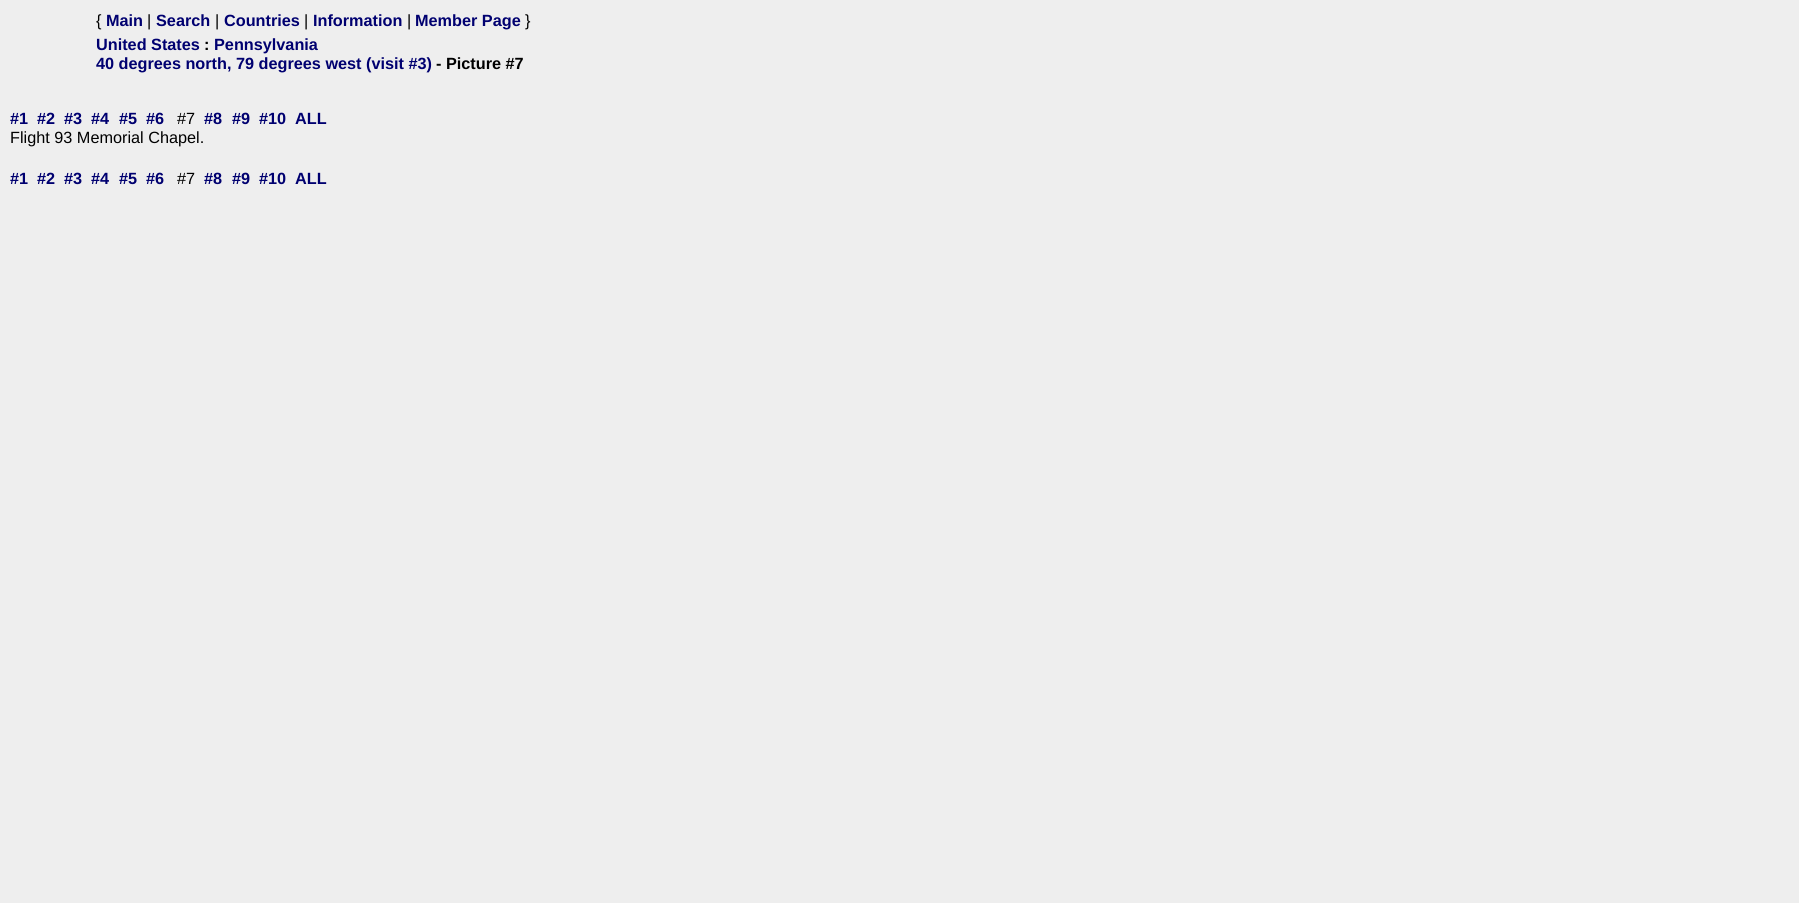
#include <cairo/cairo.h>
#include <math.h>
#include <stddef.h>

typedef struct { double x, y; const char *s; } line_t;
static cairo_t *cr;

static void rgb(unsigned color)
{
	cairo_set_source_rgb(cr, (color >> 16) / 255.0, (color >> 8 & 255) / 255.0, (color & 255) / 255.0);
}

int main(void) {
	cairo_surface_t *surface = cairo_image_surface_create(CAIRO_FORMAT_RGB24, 1799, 903);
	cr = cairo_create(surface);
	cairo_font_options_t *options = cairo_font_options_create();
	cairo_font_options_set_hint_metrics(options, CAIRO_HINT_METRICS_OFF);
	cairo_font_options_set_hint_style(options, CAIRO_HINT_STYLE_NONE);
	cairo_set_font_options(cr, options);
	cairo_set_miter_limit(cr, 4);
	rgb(0xeeeeee);
	cairo_paint(cr);
	cairo_select_font_face(cr, "Liberation Sans", CAIRO_FONT_SLANT_NORMAL, CAIRO_FONT_WEIGHT_NORMAL);
	cairo_set_font_size(cr, 16.25);
	rgb(0x000000);
	cairo_move_to(cr, 96, 26);
	cairo_show_text(cr, "{");
	cairo_select_font_face(cr, "Liberation Sans", CAIRO_FONT_SLANT_NORMAL, CAIRO_FONT_WEIGHT_BOLD);
	rgb(0x000070);
	cairo_move_to(cr, 106, 26);
	cairo_show_text(cr, "Main");
	cairo_select_font_face(cr, "Liberation Sans", CAIRO_FONT_SLANT_NORMAL, CAIRO_FONT_WEIGHT_NORMAL);
	rgb(0x000000);
	cairo_move_to(cr, 147, 26);
	cairo_show_text(cr, "|");
	cairo_select_font_face(cr, "Liberation Sans", CAIRO_FONT_SLANT_NORMAL, CAIRO_FONT_WEIGHT_BOLD);
	rgb(0x000070);
	cairo_move_to(cr, 156, 26);
	cairo_show_text(cr, "Search");
	cairo_select_font_face(cr, "Liberation Sans", CAIRO_FONT_SLANT_NORMAL, CAIRO_FONT_WEIGHT_NORMAL);
	rgb(0x000000);
	cairo_move_to(cr, 215, 26);
	cairo_show_text(cr, "|");
	cairo_select_font_face(cr, "Liberation Sans", CAIRO_FONT_SLANT_NORMAL, CAIRO_FONT_WEIGHT_BOLD);
	rgb(0x000070);
	cairo_move_to(cr, 224, 26);
	cairo_show_text(cr, "Countries");
	cairo_select_font_face(cr, "Liberation Sans", CAIRO_FONT_SLANT_NORMAL, CAIRO_FONT_WEIGHT_NORMAL);
	rgb(0x000000);
	cairo_move_to(cr, 304, 26);
	cairo_show_text(cr, "|");
	cairo_select_font_face(cr, "Liberation Sans", CAIRO_FONT_SLANT_NORMAL, CAIRO_FONT_WEIGHT_BOLD);
	rgb(0x000070);
	cairo_move_to(cr, 313, 26);
	cairo_show_text(cr, "Information");
	cairo_select_font_face(cr, "Liberation Sans", CAIRO_FONT_SLANT_NORMAL, CAIRO_FONT_WEIGHT_NORMAL);
	rgb(0x000000);
	cairo_move_to(cr, 407, 26);
	cairo_show_text(cr, "|");
	cairo_select_font_face(cr, "Liberation Sans", CAIRO_FONT_SLANT_NORMAL, CAIRO_FONT_WEIGHT_BOLD);
	rgb(0x000070);
	cairo_move_to(cr, 415, 26);
	cairo_show_text(cr, "Member Page");
	cairo_select_font_face(cr, "Liberation Sans", CAIRO_FONT_SLANT_NORMAL, CAIRO_FONT_WEIGHT_NORMAL);
	rgb(0x000000);
	cairo_move_to(cr, 525, 26);
	cairo_show_text(cr, "}");
	cairo_select_font_face(cr, "Liberation Sans", CAIRO_FONT_SLANT_NORMAL, CAIRO_FONT_WEIGHT_BOLD);
	rgb(0x000070);
	cairo_move_to(cr, 96, 50);
	cairo_show_text(cr, "United States");
	rgb(0x000000);
	cairo_move_to(cr, 204, 50);
	cairo_show_text(cr, ":");
	rgb(0x000070);
	cairo_move_to(cr, 214, 50);
	cairo_show_text(cr, "Pennsylvania");
	cairo_move_to(cr, 96, 69);
	cairo_show_text(cr, "40 degrees north, 79 degrees west (visit #3)");
	rgb(0x000000);
	cairo_move_to(cr, 436, 69);
	cairo_show_text(cr, "- Picture #7");
	rgb(0x000070);
	{
		static const line_t items[] = {
			{10, 124, "#1"},
			{37, 124, "#2"},
			{64, 124, "#3"},
			{91, 124, "#4"},
			{119, 124, "#5"},
			{146, 124, "#6"},
		};
		for (size_t i = 0; i < sizeof items / sizeof *items; i++) {
			cairo_move_to(cr, items[i].x, items[i].y);
			cairo_show_text(cr, items[i].s);
		}
	}
	cairo_select_font_face(cr, "Liberation Sans", CAIRO_FONT_SLANT_NORMAL, CAIRO_FONT_WEIGHT_NORMAL);
	rgb(0x000000);
	cairo_move_to(cr, 177, 124);
	cairo_show_text(cr, "#7");
	cairo_select_font_face(cr, "Liberation Sans", CAIRO_FONT_SLANT_NORMAL, CAIRO_FONT_WEIGHT_BOLD);
	rgb(0x000070);
	{
		static const line_t items[] = {
			{204, 124, "#8"},
			{232, 124, "#9"},
			{259, 124, "#10"},
			{295, 124, "ALL"},
		};
		for (size_t i = 0; i < sizeof items / sizeof *items; i++) {
			cairo_move_to(cr, items[i].x, items[i].y);
			cairo_show_text(cr, items[i].s);
		}
	}
	cairo_select_font_face(cr, "Liberation Sans", CAIRO_FONT_SLANT_NORMAL, CAIRO_FONT_WEIGHT_NORMAL);
	rgb(0x000000);
	cairo_move_to(cr, 10, 143);
	cairo_show_text(cr, "Flight 93 Memorial Chapel.");
	cairo_select_font_face(cr, "Liberation Sans", CAIRO_FONT_SLANT_NORMAL, CAIRO_FONT_WEIGHT_BOLD);
	rgb(0x000070);
	{
		static const line_t items[] = {
			{10, 184, "#1"},
			{37, 184, "#2"},
			{64, 184, "#3"},
			{91, 184, "#4"},
			{119, 184, "#5"},
			{146, 184, "#6"},
		};
		for (size_t i = 0; i < sizeof items / sizeof *items; i++) {
			cairo_move_to(cr, items[i].x, items[i].y);
			cairo_show_text(cr, items[i].s);
		}
	}
	cairo_select_font_face(cr, "Liberation Sans", CAIRO_FONT_SLANT_NORMAL, CAIRO_FONT_WEIGHT_NORMAL);
	rgb(0x000000);
	cairo_move_to(cr, 177, 184);
	cairo_show_text(cr, "#7");
	cairo_select_font_face(cr, "Liberation Sans", CAIRO_FONT_SLANT_NORMAL, CAIRO_FONT_WEIGHT_BOLD);
	rgb(0x000070);
	{
		static const line_t items[] = {
			{204, 184, "#8"},
			{232, 184, "#9"},
			{259, 184, "#10"},
			{295, 184, "ALL"},
		};
		for (size_t i = 0; i < sizeof items / sizeof *items; i++) {
			cairo_move_to(cr, items[i].x, items[i].y);
			cairo_show_text(cr, items[i].s);
		}
	}
	cairo_surface_write_to_png(surface, "page.png");
	cairo_font_options_destroy(options);
	cairo_destroy(cr);
	cairo_surface_destroy(surface);
	return 0;
}
